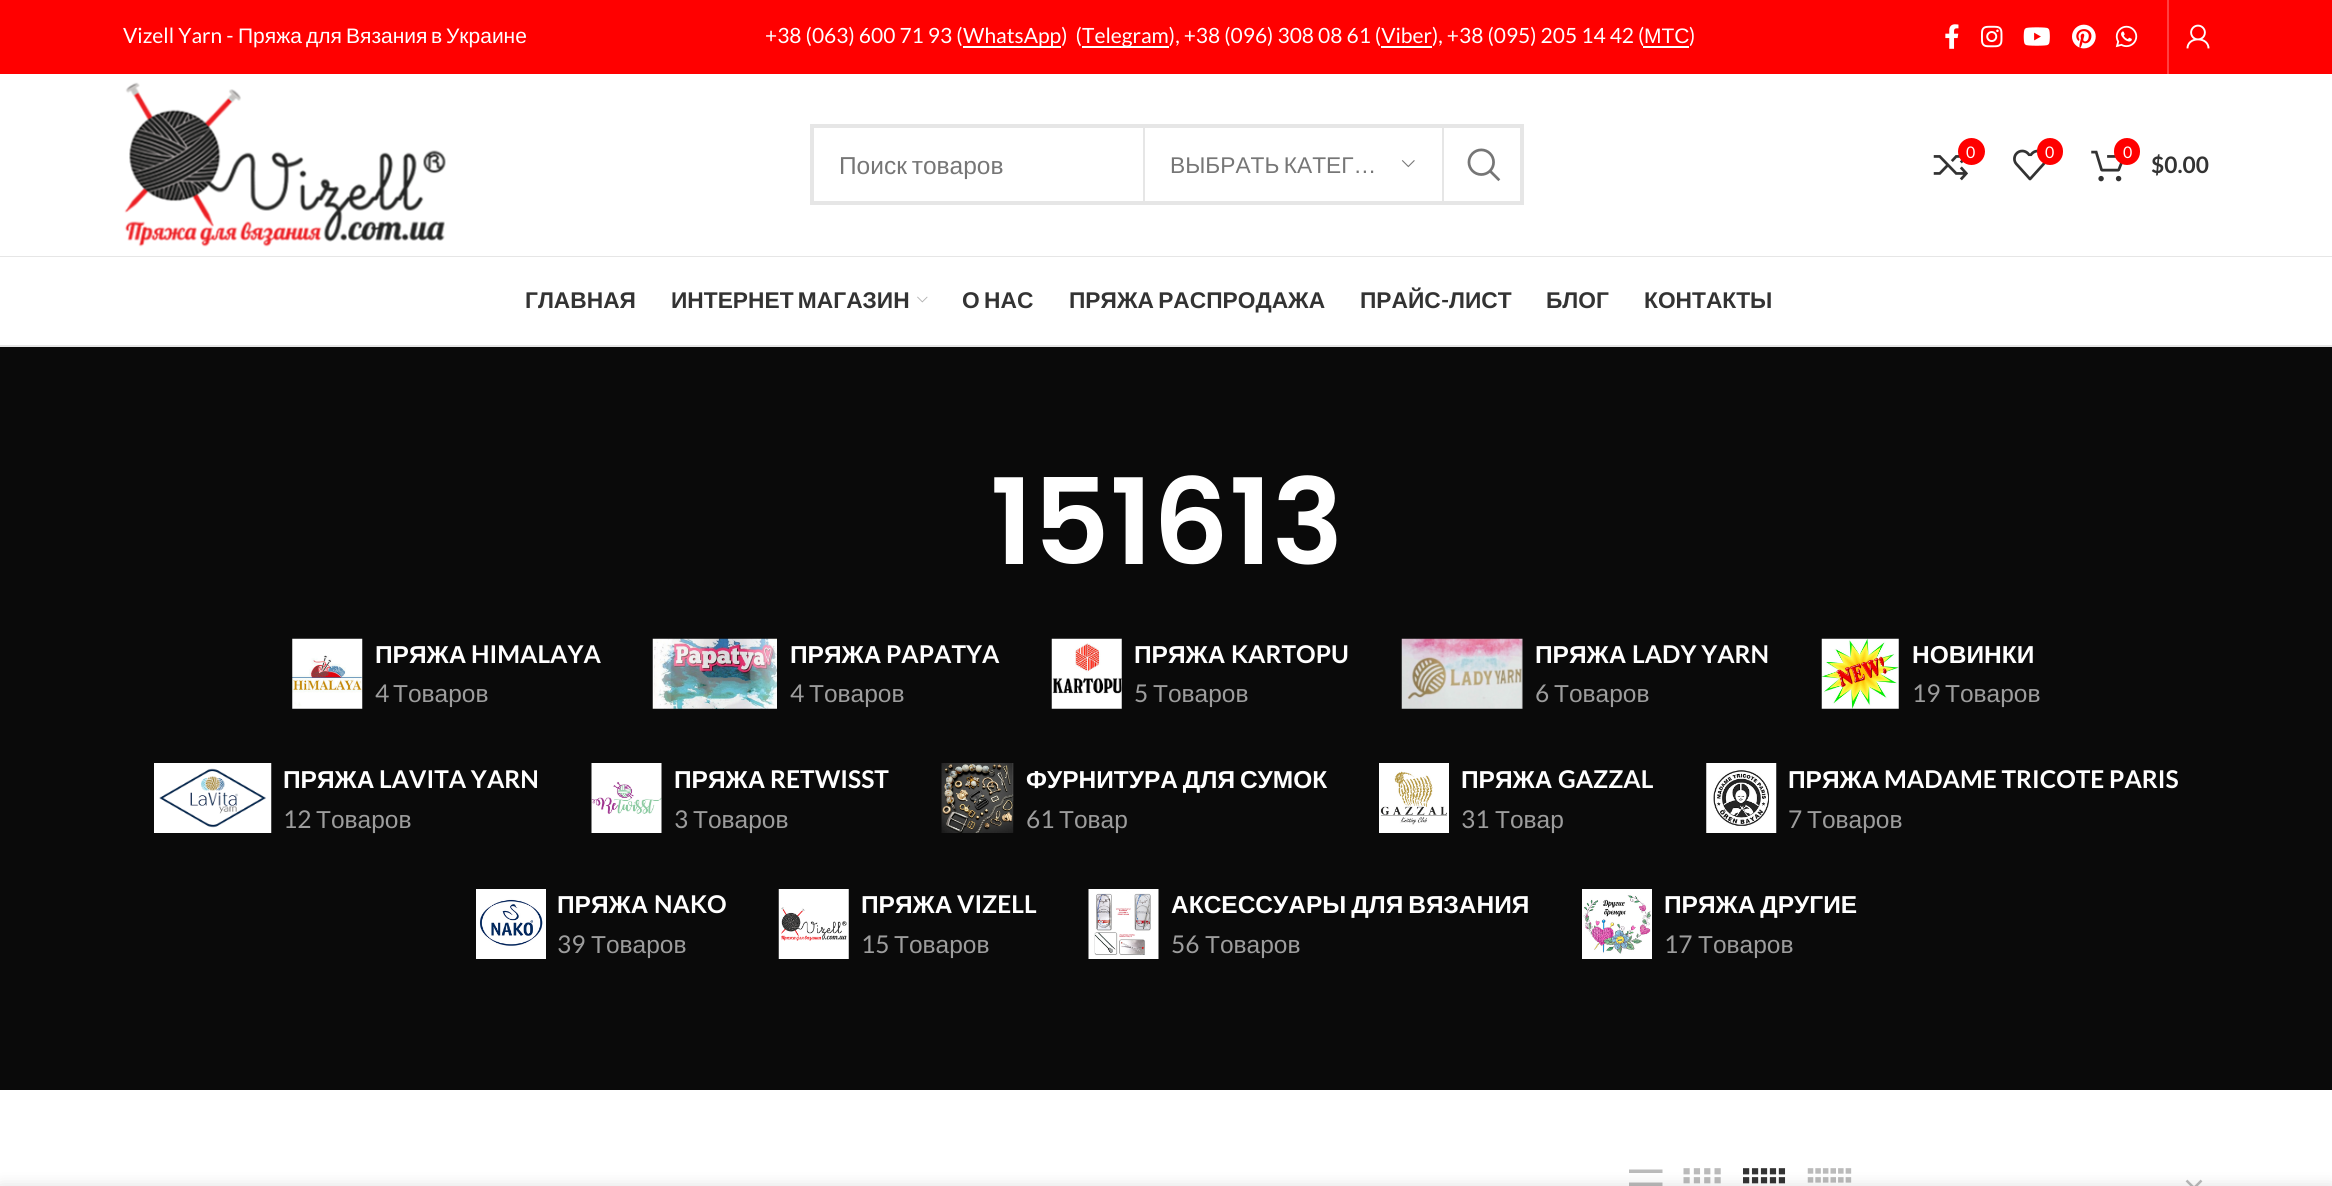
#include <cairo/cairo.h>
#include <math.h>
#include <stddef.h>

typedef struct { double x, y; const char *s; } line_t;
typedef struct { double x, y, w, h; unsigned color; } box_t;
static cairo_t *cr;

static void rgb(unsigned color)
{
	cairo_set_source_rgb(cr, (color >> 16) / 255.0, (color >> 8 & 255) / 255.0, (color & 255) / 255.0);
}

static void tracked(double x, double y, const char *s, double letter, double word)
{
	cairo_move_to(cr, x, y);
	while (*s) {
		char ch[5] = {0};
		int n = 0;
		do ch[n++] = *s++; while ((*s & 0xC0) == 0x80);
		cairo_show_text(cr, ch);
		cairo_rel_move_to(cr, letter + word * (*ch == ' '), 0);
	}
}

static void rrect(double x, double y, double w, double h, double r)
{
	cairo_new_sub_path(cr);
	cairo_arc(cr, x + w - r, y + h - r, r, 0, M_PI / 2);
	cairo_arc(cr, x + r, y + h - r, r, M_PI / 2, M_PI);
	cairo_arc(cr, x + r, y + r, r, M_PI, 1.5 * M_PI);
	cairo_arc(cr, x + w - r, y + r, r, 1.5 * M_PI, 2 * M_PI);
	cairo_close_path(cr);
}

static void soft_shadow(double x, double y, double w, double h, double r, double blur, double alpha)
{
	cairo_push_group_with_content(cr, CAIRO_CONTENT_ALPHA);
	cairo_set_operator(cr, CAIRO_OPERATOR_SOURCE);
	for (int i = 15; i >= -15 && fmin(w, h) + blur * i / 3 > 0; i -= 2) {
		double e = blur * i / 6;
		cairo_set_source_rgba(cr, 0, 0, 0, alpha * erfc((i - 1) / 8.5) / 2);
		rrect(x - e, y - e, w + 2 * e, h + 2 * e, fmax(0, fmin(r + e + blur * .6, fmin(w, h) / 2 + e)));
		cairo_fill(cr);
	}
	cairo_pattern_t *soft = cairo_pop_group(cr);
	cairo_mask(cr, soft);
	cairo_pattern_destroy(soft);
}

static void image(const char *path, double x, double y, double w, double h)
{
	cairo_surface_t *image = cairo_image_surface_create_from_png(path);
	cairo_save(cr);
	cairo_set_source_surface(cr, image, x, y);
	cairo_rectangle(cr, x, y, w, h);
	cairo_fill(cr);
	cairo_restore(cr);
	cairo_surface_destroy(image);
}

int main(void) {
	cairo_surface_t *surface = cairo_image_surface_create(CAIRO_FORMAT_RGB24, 2332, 1186);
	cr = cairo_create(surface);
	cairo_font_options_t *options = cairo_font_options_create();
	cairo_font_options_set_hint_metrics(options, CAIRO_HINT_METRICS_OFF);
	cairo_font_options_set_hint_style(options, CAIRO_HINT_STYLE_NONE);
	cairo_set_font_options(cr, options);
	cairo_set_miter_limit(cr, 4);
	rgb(0xffffff);
	cairo_paint(cr);
	{
		static const box_t items[] = {
			{0, 0, 2332, 74, 0xff0000},
			{963, 46, 98, 2, 0xffffff},
			{1082, 46, 87, 2, 0xffffff},
			{1381, 46, 51, 2, 0xffffff},
			{1643, 46, 46, 2, 0xffffff},
		};
		for (size_t i = 0; i < sizeof items / sizeof *items; i++) {
			rgb(items[i].color);
			cairo_rectangle(cr, items[i].x, items[i].y, items[i].w, items[i].h);
			cairo_fill(cr);
		}
	}
	image("img/1.png", 1945, 24, 14, 25);
	image("img/2.png", 1981, 25, 22, 23);
	image("img/3.png", 2023, 27, 27, 19);
	image("img/4.png", 2072, 24, 24, 25);
	image("img/5.png", 2115, 25, 23, 23);
	rgb(0xff4040);
	cairo_rectangle(cr, 2167, 0, 2, 74);
	cairo_fill(cr);
	image("img/6.png", 2186, 24, 24, 25);
	rgb(0xe6e6e6);
	cairo_rectangle(cr, 0, 256, 2332, 1);
	cairo_fill(cr);
	image("img/7.png", 124, 82, 322, 165);
	cairo_rectangle(cr, 812, 126, 710, 77);
	cairo_set_line_width(cr, 4);
	cairo_stroke(cr);
	cairo_rectangle(cr, 1442, 128, 2, 73);
	cairo_fill(cr);
	cairo_rectangle(cr, 1143, 128, 2, 73);
	cairo_fill(cr);
	image("img/8.png", 1401, 160, 14, 8);
	image("img/9.png", 1467, 148, 34, 34);
	image("img/10.png", 1933, 155, 35, 26);
	rgb(0xff0000);
	cairo_arc(cr, 1971.5, 151.5, 13.5, 0, 2 * M_PI);
	cairo_fill(cr);
	image("img/11.png", 2013, 149, 33, 32);
	rrect(2037, 138, 26, 27, 13);
	cairo_fill(cr);
	image("img/12.png", 2091, 150, 32, 32);
	rrect(2114, 138, 26, 27, 13);
	cairo_fill(cr);
	rgb(0xe6e6e6);
	cairo_rectangle(cr, 0, 345, 2332, 2);
	cairo_fill(cr);
	image("img/13.png", 917, 296, 11, 7);
	rgb(0x0a0a0a);
	cairo_rectangle(cr, 0, 347, 2332, 743);
	cairo_fill(cr);
	image("img/14.png", 292, 638, 71, 71);
	image("img/15.png", 652, 638, 125, 71);
	image("img/16.png", 1051, 638, 71, 71);
	image("img/17.png", 1401, 638, 122, 71);
	image("img/18.png", 1821, 638, 78, 71);
	image("img/19.png", 154, 763, 118, 70);
	image("img/20.png", 591, 763, 71, 70);
	image("img/21.png", 941, 763, 73, 70);
	image("img/22.png", 1379, 763, 70, 70);
	image("img/23.png", 1706, 763, 71, 70);
	image("img/24.png", 476, 889, 70, 70);
	image("img/25.png", 778, 889, 71, 70);
	image("img/26.png", 1088, 889, 71, 70);
	image("img/27.png", 1582, 889, 70, 70);
	rgb(0xbbbbbb);
	cairo_new_path(cr);
	cairo_move_to(cr, 1629, 1169.5);
	cairo_line_to(cr, 1629, 1173);
	cairo_line_to(cr, 1662.5, 1173);
	cairo_line_to(cr, 1662.5, 1169.5);
	cairo_close_path(cr);
	cairo_move_to(cr, 1629, 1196.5);
	cairo_line_to(cr, 1629, 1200);
	cairo_line_to(cr, 1662.5, 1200);
	cairo_line_to(cr, 1662.5, 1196.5);
	cairo_close_path(cr);
	cairo_move_to(cr, 1662.5, 1182.5);
	cairo_line_to(cr, 1629, 1182.5);
	cairo_line_to(cr, 1629, 1186);
	cairo_line_to(cr, 1662.5, 1186);
	cairo_close_path(cr);
	cairo_fill(cr);
	image("img/28.png", 1683, 1168, 38, 16);
	image("img/29.png", 1743, 1168, 43, 16);
	image("img/30.png", 1807, 1168, 45, 15);
	cairo_new_path(cr);
	cairo_move_to(cr, 2186.5, 1180.5);
	cairo_line_to(cr, 2194, 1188);
	cairo_line_to(cr, 2201.5, 1180.5);
	cairo_set_line_width(cr, 2.5);
	cairo_stroke(cr);
	rgb(0x000000);
	soft_shadow(0, 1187, 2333, 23, 0, 8, 0.14);
	cairo_select_font_face(cr, "Lato", CAIRO_FONT_SLANT_NORMAL, CAIRO_FONT_WEIGHT_NORMAL);
	cairo_set_font_size(cr, 21);
	rgb(0xffffff);
	cairo_move_to(cr, 123, 43);
	cairo_show_text(cr, "Vizell Yarn -");
	cairo_select_font_face(cr, "Liberation Sans", CAIRO_FONT_SLANT_NORMAL, CAIRO_FONT_WEIGHT_NORMAL);
	{
		static const line_t items[] = {
			{238, 43, "Пряжа"},
			{306, 43, "для"},
			{346, 43, "Вязания"},
			{431, 43, "в"},
			{446, 43, "Украине"},
		};
		for (size_t i = 0; i < sizeof items / sizeof *items; i++) {
			cairo_move_to(cr, items[i].x, items[i].y);
			cairo_show_text(cr, items[i].s);
		}
	}
	cairo_select_font_face(cr, "Lato", CAIRO_FONT_SLANT_NORMAL, CAIRO_FONT_WEIGHT_NORMAL);
	{
		static const line_t items[] = {
			{765, 43, "+38 (063) 600 71 93 ("},
			{963, 43, "WhatsApp)  ("},
			{1082, 43, "Telegram), +38 (096) 308 08 61 (Viber), +38 (095) 205 14 42 ("},
		};
		for (size_t i = 0; i < sizeof items / sizeof *items; i++) {
			cairo_move_to(cr, items[i].x, items[i].y);
			cairo_show_text(cr, items[i].s);
		}
	}
	cairo_select_font_face(cr, "Liberation Sans", CAIRO_FONT_SLANT_NORMAL, CAIRO_FONT_WEIGHT_NORMAL);
	cairo_move_to(cr, 1644, 43);
	cairo_show_text(cr, "МТС");
	cairo_select_font_face(cr, "Lato", CAIRO_FONT_SLANT_NORMAL, CAIRO_FONT_WEIGHT_NORMAL);
	cairo_move_to(cr, 1689, 43);
	cairo_show_text(cr, ")");
	cairo_select_font_face(cr, "Liberation Sans", CAIRO_FONT_SLANT_NORMAL, CAIRO_FONT_WEIGHT_NORMAL);
	cairo_set_font_size(cr, 24.5);
	rgb(0x767676);
	tracked(839, 174, "Поиск товаров", 0, -2);
	cairo_set_font_size(cr, 22.75);
	tracked(1170, 173, "ВЫБРАТЬ КАТЕГ…", 0, -2);
	cairo_select_font_face(cr, "Lato", CAIRO_FONT_SLANT_NORMAL, CAIRO_FONT_WEIGHT_NORMAL);
	cairo_set_font_size(cr, 16);
	rgb(0xffffff);
	{
		static const line_t items[] = {
			{1966, 158, "0"},
			{2045, 158, "0"},
			{2123, 158, "0"},
		};
		for (size_t i = 0; i < sizeof items / sizeof *items; i++) {
			cairo_move_to(cr, items[i].x, items[i].y);
			cairo_show_text(cr, items[i].s);
		}
	}
	cairo_select_font_face(cr, "Lato", CAIRO_FONT_SLANT_NORMAL, CAIRO_FONT_WEIGHT_BOLD);
	cairo_set_font_size(cr, 22.75);
	rgb(0x333333);
	cairo_move_to(cr, 2151, 173);
	cairo_show_text(cr, "$0.00");
	cairo_select_font_face(cr, "Liberation Sans", CAIRO_FONT_SLANT_NORMAL, CAIRO_FONT_WEIGHT_BOLD);
	cairo_move_to(cr, 525, 308);
	cairo_show_text(cr, "ГЛАВНАЯ");
	{
		static const line_t items[] = {
			{671, 308, "ИНТЕРНЕТ МАГАЗИН"},
			{962, 308, "О НАС"},
			{1069, 308, "ПРЯЖА РАСПРОДАЖА"},
		};
		for (size_t i = 0; i < sizeof items / sizeof *items; i++) {
			tracked(items[i].x, items[i].y, items[i].s, 0, -2);
		}
	}
	cairo_move_to(cr, 1360, 308);
	cairo_show_text(cr, "ПРАЙС");
	cairo_select_font_face(cr, "Lato", CAIRO_FONT_SLANT_NORMAL, CAIRO_FONT_WEIGHT_BOLD);
	cairo_move_to(cr, 1441, 308);
	cairo_show_text(cr, "-");
	cairo_select_font_face(cr, "Liberation Sans", CAIRO_FONT_SLANT_NORMAL, CAIRO_FONT_WEIGHT_BOLD);
	{
		static const line_t items[] = {
			{1449, 308, "ЛИСТ"},
			{1546, 308, "БЛОГ"},
			{1644, 308, "КОНТАКТЫ"},
		};
		for (size_t i = 0; i < sizeof items / sizeof *items; i++) {
			cairo_move_to(cr, items[i].x, items[i].y);
			cairo_show_text(cr, items[i].s);
		}
	}
	cairo_select_font_face(cr, "Poppins SemiBold", CAIRO_FONT_SLANT_NORMAL, CAIRO_FONT_WEIGHT_NORMAL);
	cairo_set_font_size(cr, 119);
	rgb(0xffffff);
	cairo_move_to(cr, 990, 564);
	cairo_show_text(cr, "151613");
	cairo_select_font_face(cr, "Liberation Sans", CAIRO_FONT_SLANT_NORMAL, CAIRO_FONT_WEIGHT_BOLD);
	cairo_set_font_size(cr, 24.5);
	cairo_move_to(cr, 375, 663);
	cairo_show_text(cr, "ПРЯЖА");
	cairo_select_font_face(cr, "Lato", CAIRO_FONT_SLANT_NORMAL, CAIRO_FONT_WEIGHT_BOLD);
	cairo_move_to(cr, 471, 663);
	cairo_show_text(cr, "HIMALAYA");
	cairo_select_font_face(cr, "Lato", CAIRO_FONT_SLANT_NORMAL, CAIRO_FONT_WEIGHT_NORMAL);
	rgb(0x9d9d9d);
	cairo_move_to(cr, 375, 702);
	cairo_show_text(cr, "4");
	cairo_select_font_face(cr, "Liberation Sans", CAIRO_FONT_SLANT_NORMAL, CAIRO_FONT_WEIGHT_NORMAL);
	cairo_move_to(cr, 393, 702);
	cairo_show_text(cr, "Товаров");
	cairo_select_font_face(cr, "Liberation Sans", CAIRO_FONT_SLANT_NORMAL, CAIRO_FONT_WEIGHT_BOLD);
	rgb(0xffffff);
	cairo_move_to(cr, 790, 663);
	cairo_show_text(cr, "ПРЯЖА");
	cairo_select_font_face(cr, "Lato", CAIRO_FONT_SLANT_NORMAL, CAIRO_FONT_WEIGHT_BOLD);
	cairo_move_to(cr, 886, 663);
	cairo_show_text(cr, "PAPATYA");
	cairo_select_font_face(cr, "Lato", CAIRO_FONT_SLANT_NORMAL, CAIRO_FONT_WEIGHT_NORMAL);
	rgb(0x9d9d9d);
	cairo_move_to(cr, 790, 702);
	cairo_show_text(cr, "4");
	cairo_select_font_face(cr, "Liberation Sans", CAIRO_FONT_SLANT_NORMAL, CAIRO_FONT_WEIGHT_NORMAL);
	cairo_move_to(cr, 809, 702);
	cairo_show_text(cr, "Товаров");
	cairo_select_font_face(cr, "Liberation Sans", CAIRO_FONT_SLANT_NORMAL, CAIRO_FONT_WEIGHT_BOLD);
	rgb(0xffffff);
	cairo_move_to(cr, 1134, 663);
	cairo_show_text(cr, "ПРЯЖА");
	cairo_select_font_face(cr, "Lato", CAIRO_FONT_SLANT_NORMAL, CAIRO_FONT_WEIGHT_BOLD);
	cairo_move_to(cr, 1231, 663);
	cairo_show_text(cr, "KARTOPU");
	cairo_select_font_face(cr, "Lato", CAIRO_FONT_SLANT_NORMAL, CAIRO_FONT_WEIGHT_NORMAL);
	rgb(0x9d9d9d);
	cairo_move_to(cr, 1134, 702);
	cairo_show_text(cr, "5");
	cairo_select_font_face(cr, "Liberation Sans", CAIRO_FONT_SLANT_NORMAL, CAIRO_FONT_WEIGHT_NORMAL);
	cairo_move_to(cr, 1153, 702);
	cairo_show_text(cr, "Товаров");
	cairo_select_font_face(cr, "Liberation Sans", CAIRO_FONT_SLANT_NORMAL, CAIRO_FONT_WEIGHT_BOLD);
	rgb(0xffffff);
	cairo_move_to(cr, 1535, 663);
	cairo_show_text(cr, "ПРЯЖА");
	cairo_select_font_face(cr, "Lato", CAIRO_FONT_SLANT_NORMAL, CAIRO_FONT_WEIGHT_BOLD);
	cairo_move_to(cr, 1632, 663);
	cairo_show_text(cr, "LADY YARN");
	cairo_select_font_face(cr, "Lato", CAIRO_FONT_SLANT_NORMAL, CAIRO_FONT_WEIGHT_NORMAL);
	rgb(0x9d9d9d);
	cairo_move_to(cr, 1535, 702);
	cairo_show_text(cr, "6");
	cairo_select_font_face(cr, "Liberation Sans", CAIRO_FONT_SLANT_NORMAL, CAIRO_FONT_WEIGHT_NORMAL);
	cairo_move_to(cr, 1554, 702);
	cairo_show_text(cr, "Товаров");
	cairo_select_font_face(cr, "Liberation Sans", CAIRO_FONT_SLANT_NORMAL, CAIRO_FONT_WEIGHT_BOLD);
	rgb(0xffffff);
	cairo_move_to(cr, 1912, 663);
	cairo_show_text(cr, "НОВИНКИ");
	cairo_select_font_face(cr, "Lato", CAIRO_FONT_SLANT_NORMAL, CAIRO_FONT_WEIGHT_NORMAL);
	rgb(0x9d9d9d);
	cairo_move_to(cr, 1912, 702);
	cairo_show_text(cr, "19");
	cairo_select_font_face(cr, "Liberation Sans", CAIRO_FONT_SLANT_NORMAL, CAIRO_FONT_WEIGHT_NORMAL);
	cairo_move_to(cr, 1945, 702);
	cairo_show_text(cr, "Товаров");
	cairo_select_font_face(cr, "Liberation Sans", CAIRO_FONT_SLANT_NORMAL, CAIRO_FONT_WEIGHT_BOLD);
	rgb(0xffffff);
	cairo_move_to(cr, 283, 788);
	cairo_show_text(cr, "ПРЯЖА");
	cairo_select_font_face(cr, "Lato", CAIRO_FONT_SLANT_NORMAL, CAIRO_FONT_WEIGHT_BOLD);
	cairo_move_to(cr, 379, 788);
	cairo_show_text(cr, "LAVITA YARN");
	cairo_select_font_face(cr, "Lato", CAIRO_FONT_SLANT_NORMAL, CAIRO_FONT_WEIGHT_NORMAL);
	rgb(0x9d9d9d);
	cairo_move_to(cr, 283, 828);
	cairo_show_text(cr, "12");
	cairo_select_font_face(cr, "Liberation Sans", CAIRO_FONT_SLANT_NORMAL, CAIRO_FONT_WEIGHT_NORMAL);
	cairo_move_to(cr, 316, 828);
	cairo_show_text(cr, "Товаров");
	cairo_select_font_face(cr, "Liberation Sans", CAIRO_FONT_SLANT_NORMAL, CAIRO_FONT_WEIGHT_BOLD);
	rgb(0xffffff);
	cairo_move_to(cr, 674, 788);
	cairo_show_text(cr, "ПРЯЖА");
	cairo_select_font_face(cr, "Lato", CAIRO_FONT_SLANT_NORMAL, CAIRO_FONT_WEIGHT_BOLD);
	cairo_move_to(cr, 770, 788);
	cairo_show_text(cr, "RETWISST");
	cairo_select_font_face(cr, "Lato", CAIRO_FONT_SLANT_NORMAL, CAIRO_FONT_WEIGHT_NORMAL);
	rgb(0x9d9d9d);
	cairo_move_to(cr, 674, 828);
	cairo_show_text(cr, "3");
	cairo_select_font_face(cr, "Liberation Sans", CAIRO_FONT_SLANT_NORMAL, CAIRO_FONT_WEIGHT_NORMAL);
	cairo_move_to(cr, 693, 828);
	cairo_show_text(cr, "Товаров");
	cairo_select_font_face(cr, "Liberation Sans", CAIRO_FONT_SLANT_NORMAL, CAIRO_FONT_WEIGHT_BOLD);
	rgb(0xffffff);
	tracked(1026, 788, "ФУРНИТУРА ДЛЯ СУМОК", 0, -2);
	cairo_select_font_face(cr, "Lato", CAIRO_FONT_SLANT_NORMAL, CAIRO_FONT_WEIGHT_NORMAL);
	rgb(0x9d9d9d);
	cairo_move_to(cr, 1026, 828);
	cairo_show_text(cr, "61");
	cairo_select_font_face(cr, "Liberation Sans", CAIRO_FONT_SLANT_NORMAL, CAIRO_FONT_WEIGHT_NORMAL);
	cairo_move_to(cr, 1059, 828);
	cairo_show_text(cr, "Товар");
	cairo_select_font_face(cr, "Liberation Sans", CAIRO_FONT_SLANT_NORMAL, CAIRO_FONT_WEIGHT_BOLD);
	rgb(0xffffff);
	cairo_move_to(cr, 1461, 788);
	cairo_show_text(cr, "ПРЯЖА");
	cairo_select_font_face(cr, "Lato", CAIRO_FONT_SLANT_NORMAL, CAIRO_FONT_WEIGHT_BOLD);
	cairo_move_to(cr, 1558, 788);
	cairo_show_text(cr, "GAZZAL");
	cairo_select_font_face(cr, "Lato", CAIRO_FONT_SLANT_NORMAL, CAIRO_FONT_WEIGHT_NORMAL);
	rgb(0x9d9d9d);
	cairo_move_to(cr, 1461, 828);
	cairo_show_text(cr, "31");
	cairo_select_font_face(cr, "Liberation Sans", CAIRO_FONT_SLANT_NORMAL, CAIRO_FONT_WEIGHT_NORMAL);
	cairo_move_to(cr, 1495, 828);
	cairo_show_text(cr, "Товар");
	cairo_select_font_face(cr, "Liberation Sans", CAIRO_FONT_SLANT_NORMAL, CAIRO_FONT_WEIGHT_BOLD);
	rgb(0xffffff);
	cairo_move_to(cr, 1788, 788);
	cairo_show_text(cr, "ПРЯЖА");
	cairo_select_font_face(cr, "Lato", CAIRO_FONT_SLANT_NORMAL, CAIRO_FONT_WEIGHT_BOLD);
	cairo_move_to(cr, 1884, 788);
	cairo_show_text(cr, "MADAME TRICOTE PARIS");
	cairo_select_font_face(cr, "Lato", CAIRO_FONT_SLANT_NORMAL, CAIRO_FONT_WEIGHT_NORMAL);
	rgb(0x9d9d9d);
	cairo_move_to(cr, 1788, 828);
	cairo_show_text(cr, "7");
	cairo_select_font_face(cr, "Liberation Sans", CAIRO_FONT_SLANT_NORMAL, CAIRO_FONT_WEIGHT_NORMAL);
	cairo_move_to(cr, 1807, 828);
	cairo_show_text(cr, "Товаров");
	cairo_select_font_face(cr, "Liberation Sans", CAIRO_FONT_SLANT_NORMAL, CAIRO_FONT_WEIGHT_BOLD);
	rgb(0xffffff);
	cairo_move_to(cr, 557, 913);
	cairo_show_text(cr, "ПРЯЖА");
	cairo_select_font_face(cr, "Lato", CAIRO_FONT_SLANT_NORMAL, CAIRO_FONT_WEIGHT_BOLD);
	cairo_move_to(cr, 654, 913);
	cairo_show_text(cr, "NAKO");
	cairo_select_font_face(cr, "Lato", CAIRO_FONT_SLANT_NORMAL, CAIRO_FONT_WEIGHT_NORMAL);
	rgb(0x9d9d9d);
	cairo_move_to(cr, 557, 953);
	cairo_show_text(cr, "39");
	cairo_select_font_face(cr, "Liberation Sans", CAIRO_FONT_SLANT_NORMAL, CAIRO_FONT_WEIGHT_NORMAL);
	cairo_move_to(cr, 591, 953);
	cairo_show_text(cr, "Товаров");
	cairo_select_font_face(cr, "Liberation Sans", CAIRO_FONT_SLANT_NORMAL, CAIRO_FONT_WEIGHT_BOLD);
	rgb(0xffffff);
	cairo_move_to(cr, 861, 913);
	cairo_show_text(cr, "ПРЯЖА");
	cairo_select_font_face(cr, "Lato", CAIRO_FONT_SLANT_NORMAL, CAIRO_FONT_WEIGHT_BOLD);
	cairo_move_to(cr, 957, 913);
	cairo_show_text(cr, "VIZELL");
	cairo_select_font_face(cr, "Lato", CAIRO_FONT_SLANT_NORMAL, CAIRO_FONT_WEIGHT_NORMAL);
	rgb(0x9d9d9d);
	cairo_move_to(cr, 861, 953);
	cairo_show_text(cr, "15");
	cairo_select_font_face(cr, "Liberation Sans", CAIRO_FONT_SLANT_NORMAL, CAIRO_FONT_WEIGHT_NORMAL);
	cairo_move_to(cr, 894, 953);
	cairo_show_text(cr, "Товаров");
	cairo_select_font_face(cr, "Liberation Sans", CAIRO_FONT_SLANT_NORMAL, CAIRO_FONT_WEIGHT_BOLD);
	rgb(0xffffff);
	tracked(1171, 913, "АКСЕССУАРЫ ДЛЯ ВЯЗАНИЯ", 0, -2);
	cairo_select_font_face(cr, "Lato", CAIRO_FONT_SLANT_NORMAL, CAIRO_FONT_WEIGHT_NORMAL);
	rgb(0x9d9d9d);
	cairo_move_to(cr, 1171, 953);
	cairo_show_text(cr, "56");
	cairo_select_font_face(cr, "Liberation Sans", CAIRO_FONT_SLANT_NORMAL, CAIRO_FONT_WEIGHT_NORMAL);
	cairo_move_to(cr, 1205, 953);
	cairo_show_text(cr, "Товаров");
	cairo_select_font_face(cr, "Liberation Sans", CAIRO_FONT_SLANT_NORMAL, CAIRO_FONT_WEIGHT_BOLD);
	rgb(0xffffff);
	tracked(1664, 913, "ПРЯЖА ДРУГИЕ", 0, -2);
	cairo_select_font_face(cr, "Lato", CAIRO_FONT_SLANT_NORMAL, CAIRO_FONT_WEIGHT_NORMAL);
	rgb(0x9d9d9d);
	cairo_move_to(cr, 1664, 953);
	cairo_show_text(cr, "17");
	cairo_select_font_face(cr, "Liberation Sans", CAIRO_FONT_SLANT_NORMAL, CAIRO_FONT_WEIGHT_NORMAL);
	cairo_move_to(cr, 1698, 953);
	cairo_show_text(cr, "Товаров");
	cairo_surface_write_to_png(surface, "page.png");
	cairo_font_options_destroy(options);
	cairo_destroy(cr);
	cairo_surface_destroy(surface);
	return 0;
}
